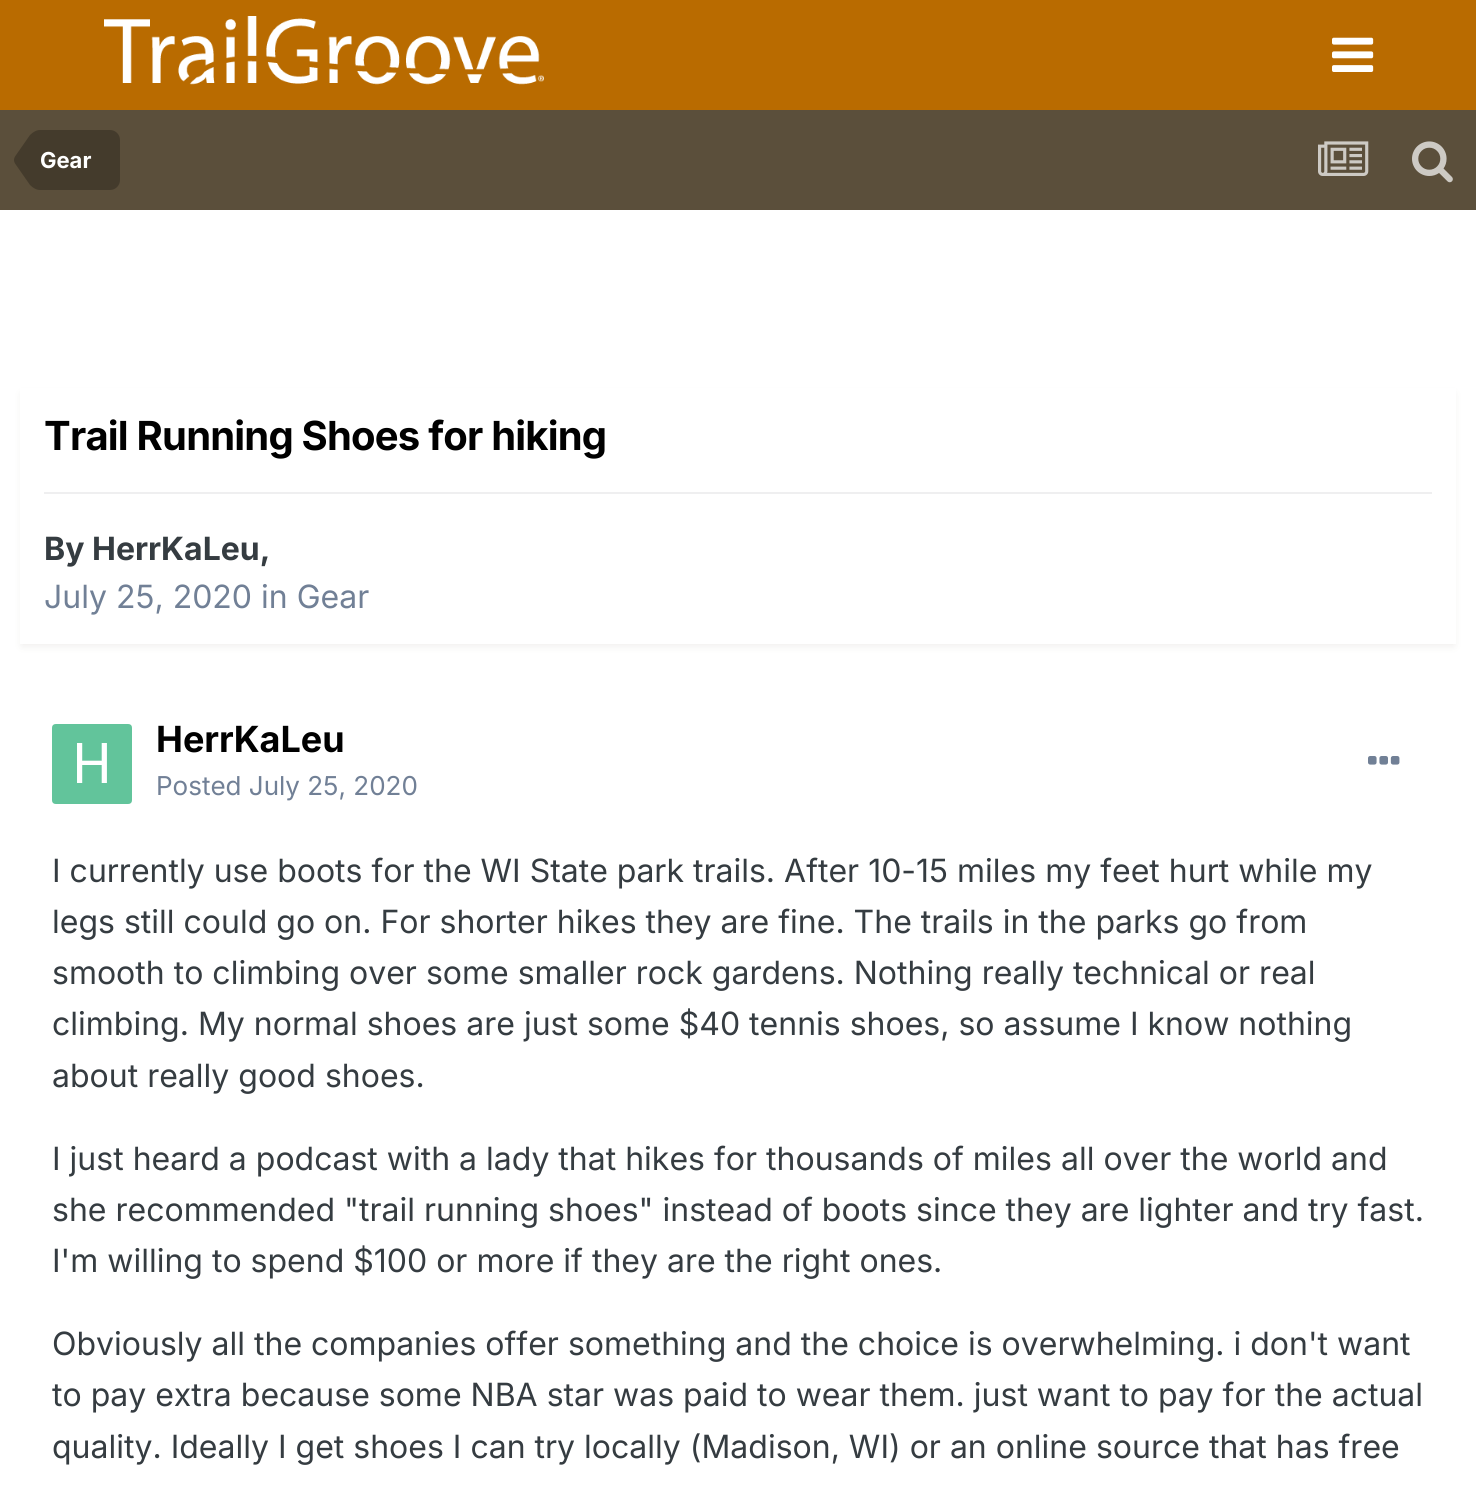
#include <cairo/cairo.h>
#include <math.h>
#include <stddef.h>

typedef struct { double x, y; const char *s; } line_t;
static cairo_t *cr;

static void rgb(unsigned color)
{
	cairo_set_source_rgb(cr, (color >> 16) / 255.0, (color >> 8 & 255) / 255.0, (color & 255) / 255.0);
}

static void tracked(double x, double y, const char *s, double letter, double word)
{
	cairo_move_to(cr, x, y);
	while (*s) {
		char ch[5] = {0};
		int n = 0;
		do ch[n++] = *s++; while ((*s & 0xC0) == 0x80);
		cairo_show_text(cr, ch);
		cairo_rel_move_to(cr, letter + word * (*ch == ' '), 0);
	}
}

static void rrect(double x, double y, double w, double h, double r)
{
	cairo_new_sub_path(cr);
	cairo_arc(cr, x + w - r, y + h - r, r, 0, M_PI / 2);
	cairo_arc(cr, x + r, y + h - r, r, M_PI / 2, M_PI);
	cairo_arc(cr, x + r, y + r, r, M_PI, 1.5 * M_PI);
	cairo_arc(cr, x + w - r, y + r, r, 1.5 * M_PI, 2 * M_PI);
	cairo_close_path(cr);
}

static void soft_shadow(double x, double y, double w, double h, double r, double blur, double alpha)
{
	cairo_push_group_with_content(cr, CAIRO_CONTENT_ALPHA);
	cairo_set_operator(cr, CAIRO_OPERATOR_SOURCE);
	for (int i = 15; i >= -15 && fmin(w, h) + blur * i / 3 > 0; i -= 2) {
		double e = blur * i / 6;
		cairo_set_source_rgba(cr, 0, 0, 0, alpha * erfc((i - 1) / 8.5) / 2);
		rrect(x - e, y - e, w + 2 * e, h + 2 * e, fmax(0, fmin(r + e + blur * .6, fmin(w, h) / 2 + e)));
		cairo_fill(cr);
	}
	cairo_pattern_t *soft = cairo_pop_group(cr);
	cairo_mask(cr, soft);
	cairo_pattern_destroy(soft);
}

static void image(const char *path, double x, double y, double w, double h)
{
	cairo_surface_t *image = cairo_image_surface_create_from_png(path);
	cairo_save(cr);
	cairo_set_source_surface(cr, image, x, y);
	cairo_rectangle(cr, x, y, w, h);
	cairo_fill(cr);
	cairo_restore(cr);
	cairo_surface_destroy(image);
}

int main(void) {
	cairo_surface_t *surface = cairo_image_surface_create(CAIRO_FORMAT_RGB24, 1476, 1494);
	cr = cairo_create(surface);
	cairo_font_options_t *options = cairo_font_options_create();
	cairo_font_options_set_hint_metrics(options, CAIRO_HINT_METRICS_OFF);
	cairo_font_options_set_hint_style(options, CAIRO_HINT_STYLE_NONE);
	cairo_set_font_options(cr, options);
	cairo_set_miter_limit(cr, 4);
	rgb(0x5b4f3b);
	cairo_paint(cr);
	rgb(0xb96b00);
	cairo_rectangle(cr, 0, 0, 1476, 110);
	cairo_fill(cr);
	image("img/1.png", 104, 16, 440, 69);
	image("img/2.png", 1332, 37, 42, 35);
	rgb(0x443b2c);
	cairo_new_path(cr);
	cairo_move_to(cr, 40, 130);
	cairo_line_to(cr, 110, 130);
	cairo_curve_to(cr, 115.5, 130, 120, 134.5, 120, 140);
	cairo_line_to(cr, 120, 180);
	cairo_curve_to(cr, 120, 185.5, 115.5, 190, 110, 190);
	cairo_line_to(cr, 40, 190);
	cairo_close_path(cr);
	cairo_fill(cr);
	cairo_new_path(cr);
	cairo_move_to(cr, 40, 160);
	cairo_line_to(cr, 40, 190);
	cairo_curve_to(cr, 36.5, 190, 33, 188, 30, 185);
	cairo_line_to(cr, 15, 163.5);
	cairo_curve_to(cr, 14.5, 162.5, 14, 161.5, 14, 160);
	cairo_close_path(cr);
	cairo_move_to(cr, 40, 160);
	cairo_line_to(cr, 14, 160);
	cairo_curve_to(cr, 14, 158.5, 14.5, 157.5, 15, 156.5);
	cairo_line_to(cr, 30, 135);
	cairo_curve_to(cr, 33, 132, 36.5, 130, 40, 130);
	cairo_close_path(cr);
	cairo_fill(cr);
	image("img/3.png", 1318, 141, 51, 35);
	image("img/4.png", 1412, 141, 41, 42);
	rgb(0xffffff);
	cairo_rectangle(cr, 0, 210, 1476, 1284);
	cairo_fill(cr);
	cairo_save(cr);
	cairo_set_fill_rule(cr, CAIRO_FILL_RULE_EVEN_ODD);
	cairo_new_path(cr);
	cairo_move_to(cr, 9, 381);
	cairo_line_to(cr, 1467, 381);
	cairo_line_to(cr, 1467, 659);
	cairo_line_to(cr, 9, 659);
	cairo_close_path(cr);
	cairo_move_to(cr, 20, 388);
	cairo_line_to(cr, 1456, 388);
	cairo_line_to(cr, 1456, 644);
	cairo_line_to(cr, 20, 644);
	cairo_close_path(cr);
	cairo_clip(cr);
	rgb(0x5b4f3b);
	soft_shadow(22, 394, 1432, 252, 0, 4, 0.1);
	cairo_restore(cr);
	rgb(0xefeff0);
	cairo_rectangle(cr, 44, 492, 1388, 2);
	cairo_fill(cr);
	image("img/5.png", 52, 724, 80, 80);
	image("img/6.png", 1368, 756, 32, 9);
	cairo_select_font_face(cr, "Inter", CAIRO_FONT_SLANT_NORMAL, CAIRO_FONT_WEIGHT_BOLD);
	cairo_set_font_size(cr, 22);
	rgb(0xffffff);
	cairo_move_to(cr, 40, 168);
	cairo_show_text(cr, "Gear");
	cairo_set_font_size(cr, 40);
	rgb(0x000000);
	tracked(44, 450, "Trail Running Shoes for hiking", -0.8, 0);
	cairo_set_font_size(cr, 32);
	rgb(0x353c41);
	cairo_move_to(cr, 44, 560);
	cairo_show_text(cr, "By HerrKaLeu,");
	cairo_select_font_face(cr, "Inter", CAIRO_FONT_SLANT_NORMAL, CAIRO_FONT_WEIGHT_NORMAL);
	rgb(0x718096);
	cairo_move_to(cr, 44, 608);
	cairo_show_text(cr, "July 25, 2020 in Gear");
	cairo_select_font_face(cr, "Inter", CAIRO_FONT_SLANT_NORMAL, CAIRO_FONT_WEIGHT_BOLD);
	cairo_set_font_size(cr, 36);
	rgb(0x000000);
	cairo_move_to(cr, 156, 752);
	cairo_show_text(cr, "HerrKaLeu");
	cairo_select_font_face(cr, "Inter", CAIRO_FONT_SLANT_NORMAL, CAIRO_FONT_WEIGHT_NORMAL);
	cairo_set_font_size(cr, 26);
	rgb(0x718096);
	cairo_move_to(cr, 156, 795);
	cairo_show_text(cr, "Posted July 25, 2020");
	cairo_set_font_size(cr, 32);
	rgb(0x353c41);
	{
		static const line_t items[] = {
			{52, 882, "I currently use boots for the WI State park trails. After 10-15 miles my feet hurt while my"},
			{52, 933, "legs still could go on. For shorter hikes they are fine. The trails in the parks go from"},
			{52, 984, "smooth to climbing over some smaller rock gardens. Nothing really technical or real"},
			{52, 1035, "climbing. My normal shoes are just some $40 tennis shoes, so assume I know nothing"},
			{52, 1087, "about really good shoes."},
			{52, 1170, "I just heard a podcast with a lady that hikes for thousands of miles all over the world and"},
			{52, 1221, "she recommended \"trail running shoes\" instead of boots since they are lighter and try fast."},
			{52, 1272, "I'm willing to spend $100 or more if they are the right ones."},
			{52, 1355, "Obviously all the companies offer something and the choice is overwhelming. i don't want"},
			{52, 1406, "to pay extra because some NBA star was paid to wear them. just want to pay for the actual"},
			{52, 1458, "quality. Ideally I get shoes I can try locally (Madison, WI) or an online source that has free"},
		};
		for (size_t i = 0; i < sizeof items / sizeof *items; i++) {
			cairo_move_to(cr, items[i].x, items[i].y);
			cairo_show_text(cr, items[i].s);
		}
	}
	cairo_surface_write_to_png(surface, "page.png");
	cairo_font_options_destroy(options);
	cairo_destroy(cr);
	cairo_surface_destroy(surface);
	return 0;
}
